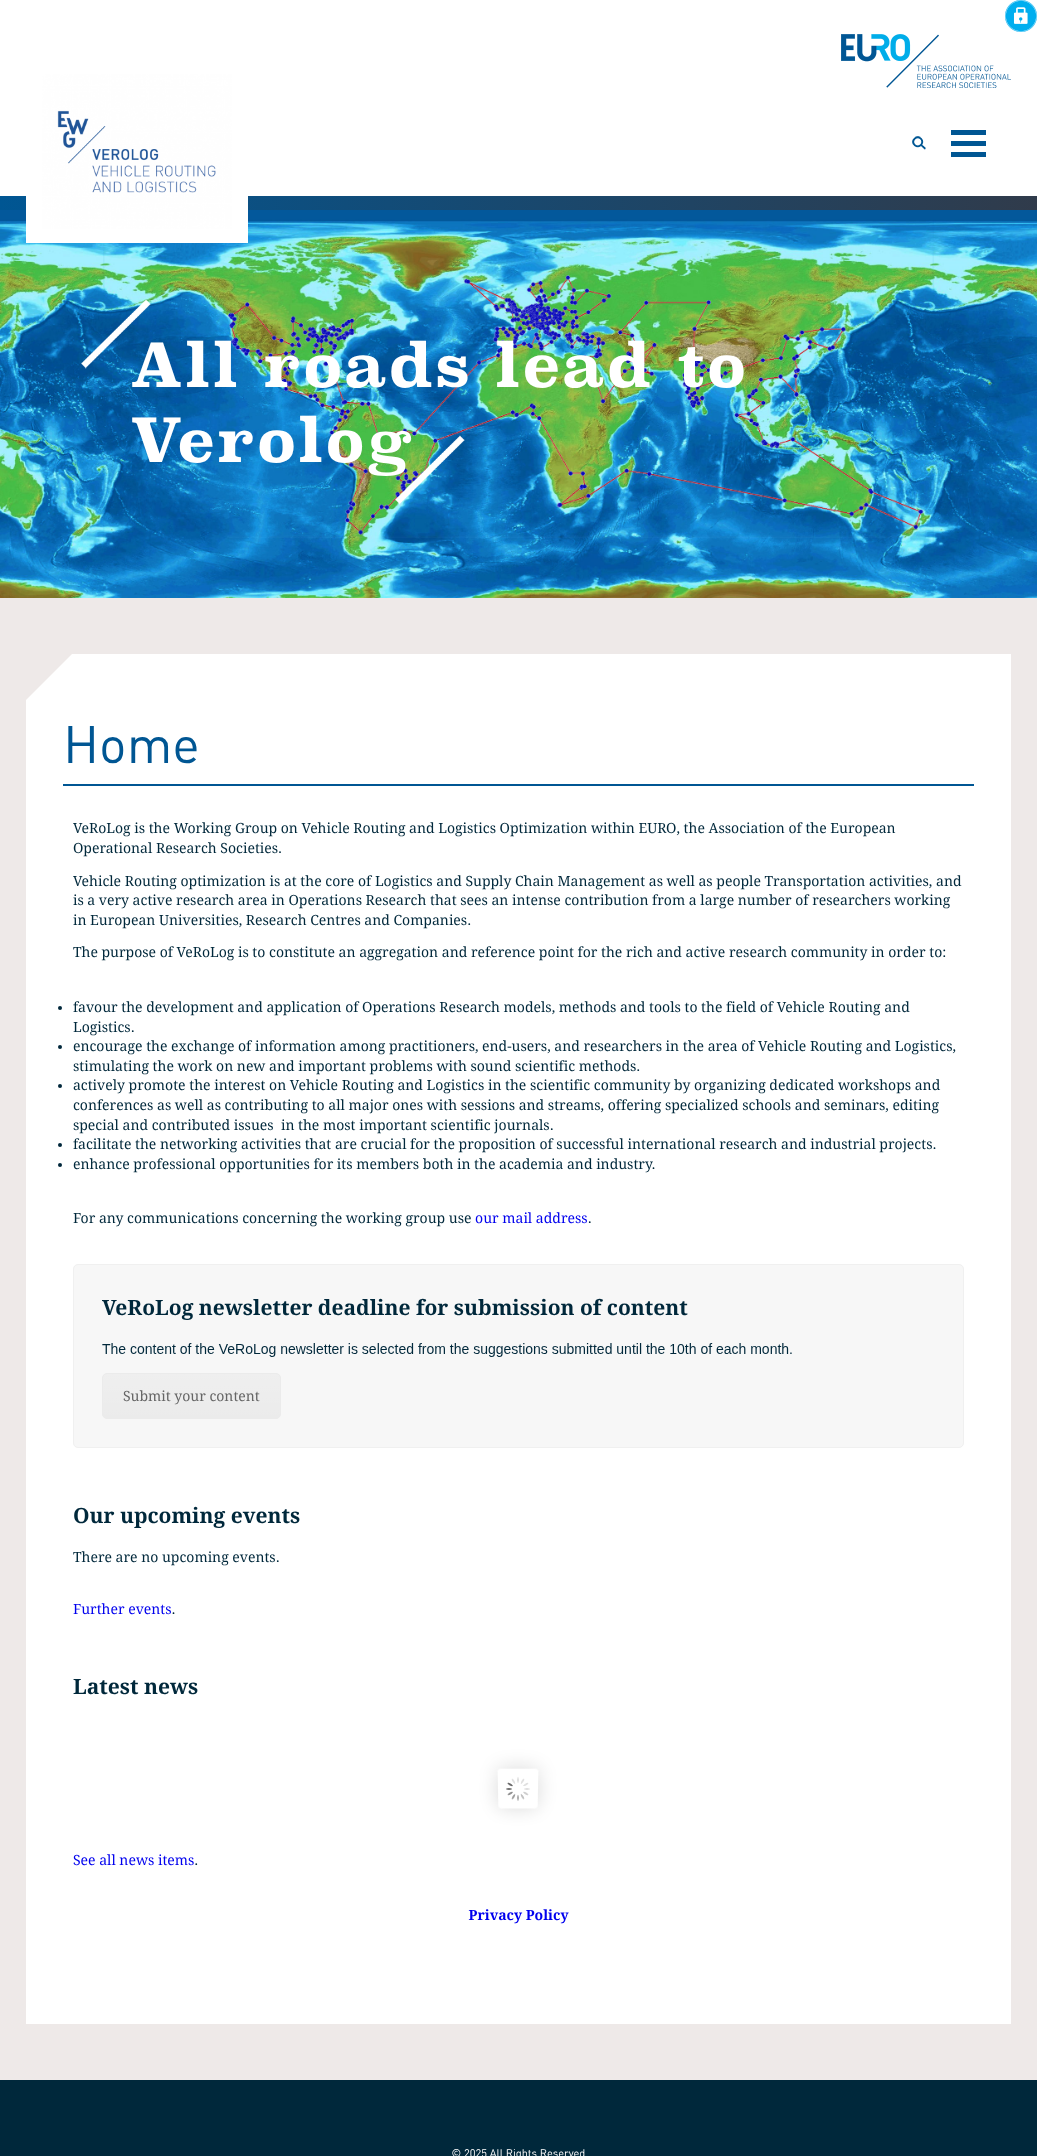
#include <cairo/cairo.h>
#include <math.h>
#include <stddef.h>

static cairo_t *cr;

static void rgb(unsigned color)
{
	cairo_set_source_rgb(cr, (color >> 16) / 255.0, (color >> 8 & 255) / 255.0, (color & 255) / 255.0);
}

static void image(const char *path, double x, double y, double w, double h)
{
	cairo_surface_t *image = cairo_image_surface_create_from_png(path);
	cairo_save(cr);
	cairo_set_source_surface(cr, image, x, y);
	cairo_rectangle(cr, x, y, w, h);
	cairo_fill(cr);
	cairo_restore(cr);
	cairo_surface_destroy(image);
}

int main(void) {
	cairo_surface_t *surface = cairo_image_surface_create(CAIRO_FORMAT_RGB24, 1037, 2156);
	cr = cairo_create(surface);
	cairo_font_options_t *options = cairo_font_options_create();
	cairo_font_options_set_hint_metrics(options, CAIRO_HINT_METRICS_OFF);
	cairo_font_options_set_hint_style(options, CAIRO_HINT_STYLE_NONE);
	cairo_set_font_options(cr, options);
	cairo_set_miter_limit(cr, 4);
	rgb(0xffffff);
	cairo_paint(cr);
	image("img/1.png", 0, 0, 1037, 2156);
	cairo_surface_write_to_png(surface, "page.png");
	cairo_font_options_destroy(options);
	cairo_destroy(cr);
	cairo_surface_destroy(surface);
	return 0;
}
